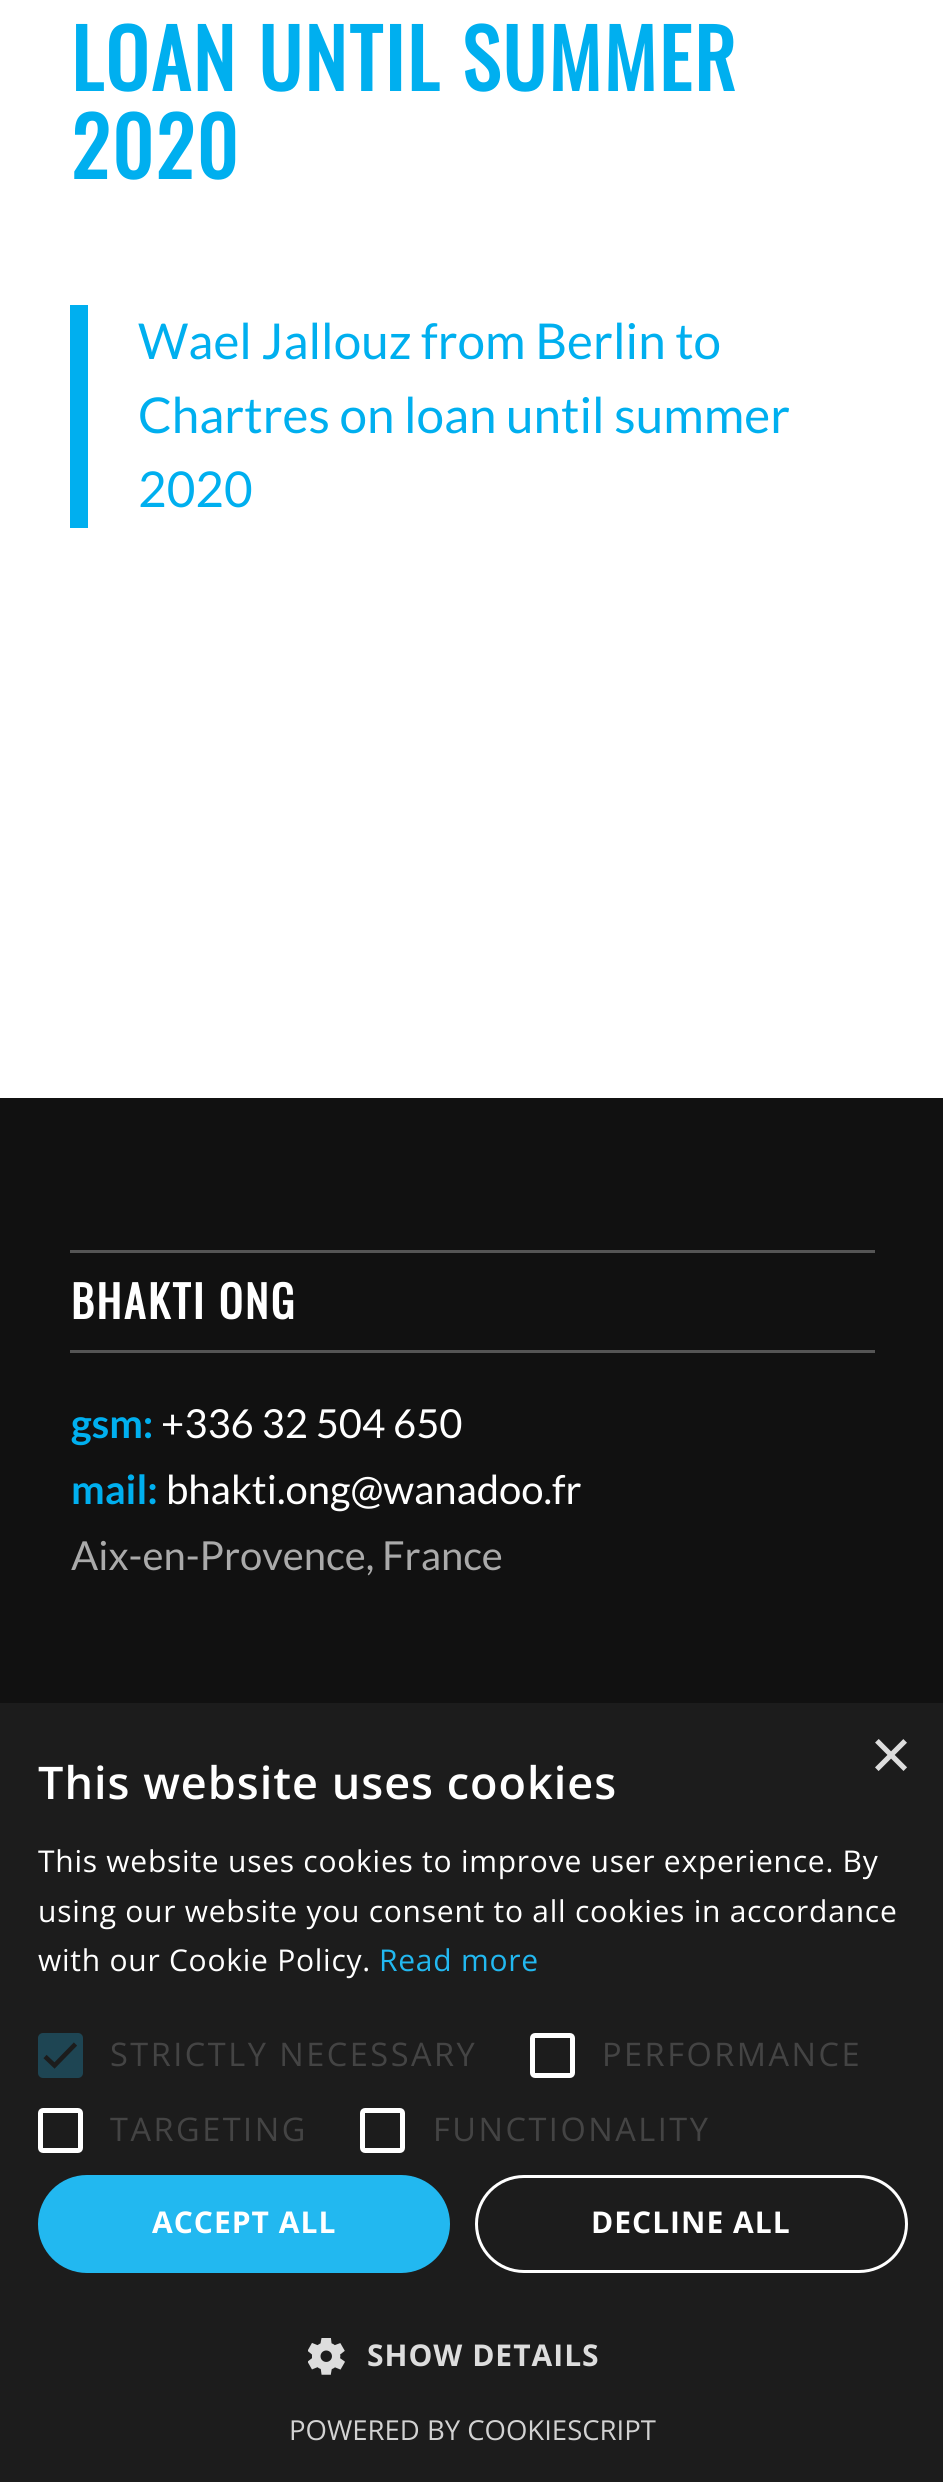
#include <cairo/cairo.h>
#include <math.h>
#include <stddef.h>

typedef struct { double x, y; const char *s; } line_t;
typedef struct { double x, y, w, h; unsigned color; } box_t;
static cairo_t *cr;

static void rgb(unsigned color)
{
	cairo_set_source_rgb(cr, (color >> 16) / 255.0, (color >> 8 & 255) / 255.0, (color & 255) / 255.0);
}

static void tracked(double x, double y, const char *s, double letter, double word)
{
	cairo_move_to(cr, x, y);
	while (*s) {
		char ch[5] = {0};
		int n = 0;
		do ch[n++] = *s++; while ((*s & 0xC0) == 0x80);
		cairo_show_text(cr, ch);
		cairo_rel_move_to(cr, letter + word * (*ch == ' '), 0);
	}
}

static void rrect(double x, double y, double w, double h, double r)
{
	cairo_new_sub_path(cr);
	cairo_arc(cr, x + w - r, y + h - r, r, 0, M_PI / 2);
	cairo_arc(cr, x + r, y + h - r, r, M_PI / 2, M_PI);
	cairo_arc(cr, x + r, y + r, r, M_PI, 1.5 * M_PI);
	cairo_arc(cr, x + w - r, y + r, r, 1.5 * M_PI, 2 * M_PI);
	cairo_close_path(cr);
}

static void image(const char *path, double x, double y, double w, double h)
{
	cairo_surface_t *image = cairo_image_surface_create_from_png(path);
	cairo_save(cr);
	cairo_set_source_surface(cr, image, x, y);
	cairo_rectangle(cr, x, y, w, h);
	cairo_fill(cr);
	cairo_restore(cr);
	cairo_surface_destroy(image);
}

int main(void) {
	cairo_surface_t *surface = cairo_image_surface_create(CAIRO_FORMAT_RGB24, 943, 2482);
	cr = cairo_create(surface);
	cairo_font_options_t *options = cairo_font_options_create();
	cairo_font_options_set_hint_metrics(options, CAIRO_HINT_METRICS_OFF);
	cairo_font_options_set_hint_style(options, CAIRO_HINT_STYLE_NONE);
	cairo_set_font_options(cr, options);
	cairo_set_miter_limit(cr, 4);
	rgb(0xffffff);
	cairo_paint(cr);
	{
		static const box_t items[] = {
			{70, 305, 18, 223, 0x00afef},
			{0, 1098, 943, 605, 0x111111},
			{70, 1250, 805, 3, 0x555555},
			{70, 1350, 805, 3, 0x555555},
			{0, 1703, 943, 779, 0x1c1c1c},
		};
		for (size_t i = 0; i < sizeof items / sizeof *items; i++) {
			rgb(items[i].color);
			cairo_rectangle(cr, items[i].x, items[i].y, items[i].w, items[i].h);
			cairo_fill(cr);
		}
	}
	rgb(0x1e4553);
	rrect(38, 2033, 45, 45, 5);
	cairo_fill(cr);
	cairo_new_path(cr);
	cairo_move_to(cr, 45, 2056.5);
	cairo_line_to(cr, 54.5, 2065.5);
	cairo_line_to(cr, 75.5, 2044);
	rgb(0x1c1c1c);
	cairo_set_line_width(cr, 4.6);
	cairo_stroke(cr);
	rrect(532.5, 2035.5, 40, 40, 2.5);
	rgb(0xffffff);
	cairo_set_line_width(cr, 5);
	cairo_stroke(cr);
	rrect(40.5, 2110.5, 40, 40, 2.5);
	cairo_stroke(cr);
	rrect(362.5, 2110.5, 40, 40, 2.5);
	cairo_stroke(cr);
	rgb(0x22b8f0);
	rrect(38, 2175, 412, 98, 49);
	cairo_fill(cr);
	rrect(476.5, 2176.5, 430, 95, 47.5);
	rgb(0xffffff);
	cairo_set_line_width(cr, 3);
	cairo_stroke(cr);
	image("img/1.png", 308, 2338, 37, 37);
	cairo_select_font_face(cr, "Oswald", CAIRO_FONT_SLANT_NORMAL, CAIRO_FONT_WEIGHT_BOLD);
	cairo_set_font_size(cr, 80);
	rgb(0x00afef);
	tracked(71, 91, "LOAN UNTIL SUMMER", 2.5, 0);
	tracked(71, 179, "2020", 2.5, 0);
	cairo_select_font_face(cr, "Lato", CAIRO_FONT_SLANT_NORMAL, CAIRO_FONT_WEIGHT_NORMAL);
	cairo_set_font_size(cr, 49.4);
	{
		static const line_t items[] = {
			{138, 359, "Wael Jallouz from Berlin to"},
			{138, 433, "Chartres on loan until summer"},
			{138, 507, "2020"},
		};
		for (size_t i = 0; i < sizeof items / sizeof *items; i++) {
			cairo_move_to(cr, items[i].x, items[i].y);
			cairo_show_text(cr, items[i].s);
		}
	}
	cairo_select_font_face(cr, "Oswald", CAIRO_FONT_SLANT_NORMAL, CAIRO_FONT_WEIGHT_BOLD);
	cairo_set_font_size(cr, 44);
	rgb(0xffffff);
	tracked(71, 1319, "BHAKTI ONG", 2.5, 0);
	cairo_select_font_face(cr, "Lato", CAIRO_FONT_SLANT_NORMAL, CAIRO_FONT_WEIGHT_BOLD);
	cairo_set_font_size(cr, 40);
	rgb(0x00afef);
	cairo_move_to(cr, 71, 1438);
	cairo_show_text(cr, "gsm:");
	cairo_select_font_face(cr, "Lato", CAIRO_FONT_SLANT_NORMAL, CAIRO_FONT_WEIGHT_NORMAL);
	rgb(0xffffff);
	cairo_move_to(cr, 161, 1438);
	cairo_show_text(cr, "+336 32 504 650");
	cairo_select_font_face(cr, "Lato", CAIRO_FONT_SLANT_NORMAL, CAIRO_FONT_WEIGHT_BOLD);
	rgb(0x00afef);
	cairo_move_to(cr, 71, 1504);
	cairo_show_text(cr, "mail:");
	cairo_select_font_face(cr, "Lato", CAIRO_FONT_SLANT_NORMAL, CAIRO_FONT_WEIGHT_NORMAL);
	rgb(0xffffff);
	cairo_move_to(cr, 166, 1504);
	cairo_show_text(cr, "bhakti.ong@wanadoo.fr");
	rgb(0xaaaaaa);
	cairo_move_to(cr, 71, 1570);
	cairo_show_text(cr, "Aix-en-Provence, France");
	cairo_select_font_face(cr, "Liberation Sans", CAIRO_FONT_SLANT_NORMAL, CAIRO_FONT_WEIGHT_NORMAL);
	cairo_set_font_size(cr, 72);
	rgb(0xdddddd);
	cairo_move_to(cr, 870, 1779);
	cairo_show_text(cr, "×");
	cairo_select_font_face(cr, "Open Sans SemiBold", CAIRO_FONT_SLANT_NORMAL, CAIRO_FONT_WEIGHT_NORMAL);
	cairo_set_font_size(cr, 45);
	rgb(0xffffff);
	tracked(38, 1799, "This website uses cookies", 1, 0);
	cairo_select_font_face(cr, "Open Sans", CAIRO_FONT_SLANT_NORMAL, CAIRO_FONT_WEIGHT_NORMAL);
	cairo_set_font_size(cr, 30);
	{
		static const line_t items[] = {
			{38, 1872, "This website uses cookies to improve user experience. By"},
			{38, 1922, "using our website you consent to all cookies in accordance"},
			{38, 1971, "with our Cookie Policy."},
		};
		for (size_t i = 0; i < sizeof items / sizeof *items; i++) {
			tracked(items[i].x, items[i].y, items[i].s, 0.75, 0);
		}
	}
	rgb(0x22b8f0);
	tracked(379, 1971, "Read more", 0.75, 0);
	cairo_set_font_size(cr, 32.5);
	rgb(0x444444);
	{
		static const line_t items[] = {
			{110, 2066, "STRICTLY NECESSARY"},
			{602, 2066, "PERFORMANCE"},
			{110, 2141, "TARGETING"},
			{433, 2141, "FUNCTIONALITY"},
		};
		for (size_t i = 0; i < sizeof items / sizeof *items; i++) {
			tracked(items[i].x, items[i].y, items[i].s, 2.5, 0);
		}
	}
	cairo_select_font_face(cr, "Open Sans", CAIRO_FONT_SLANT_NORMAL, CAIRO_FONT_WEIGHT_BOLD);
	cairo_set_font_size(cr, 30);
	rgb(0xffffff);
	tracked(152, 2233, "ACCEPT ALL", 1, 0);
	tracked(591, 2233, "DECLINE ALL", 1, 0);
	rgb(0xdddddd);
	tracked(367, 2366, "SHOW DETAILS", 1, 0);
	cairo_select_font_face(cr, "Open Sans", CAIRO_FONT_SLANT_NORMAL, CAIRO_FONT_WEIGHT_NORMAL);
	cairo_set_font_size(cr, 27.5);
	rgb(0xd2d2d2);
	cairo_move_to(cr, 289, 2440);
	cairo_show_text(cr, "POWERED BY COOKIESCRIPT");
	cairo_surface_write_to_png(surface, "page.png");
	cairo_font_options_destroy(options);
	cairo_destroy(cr);
	cairo_surface_destroy(surface);
	return 0;
}
